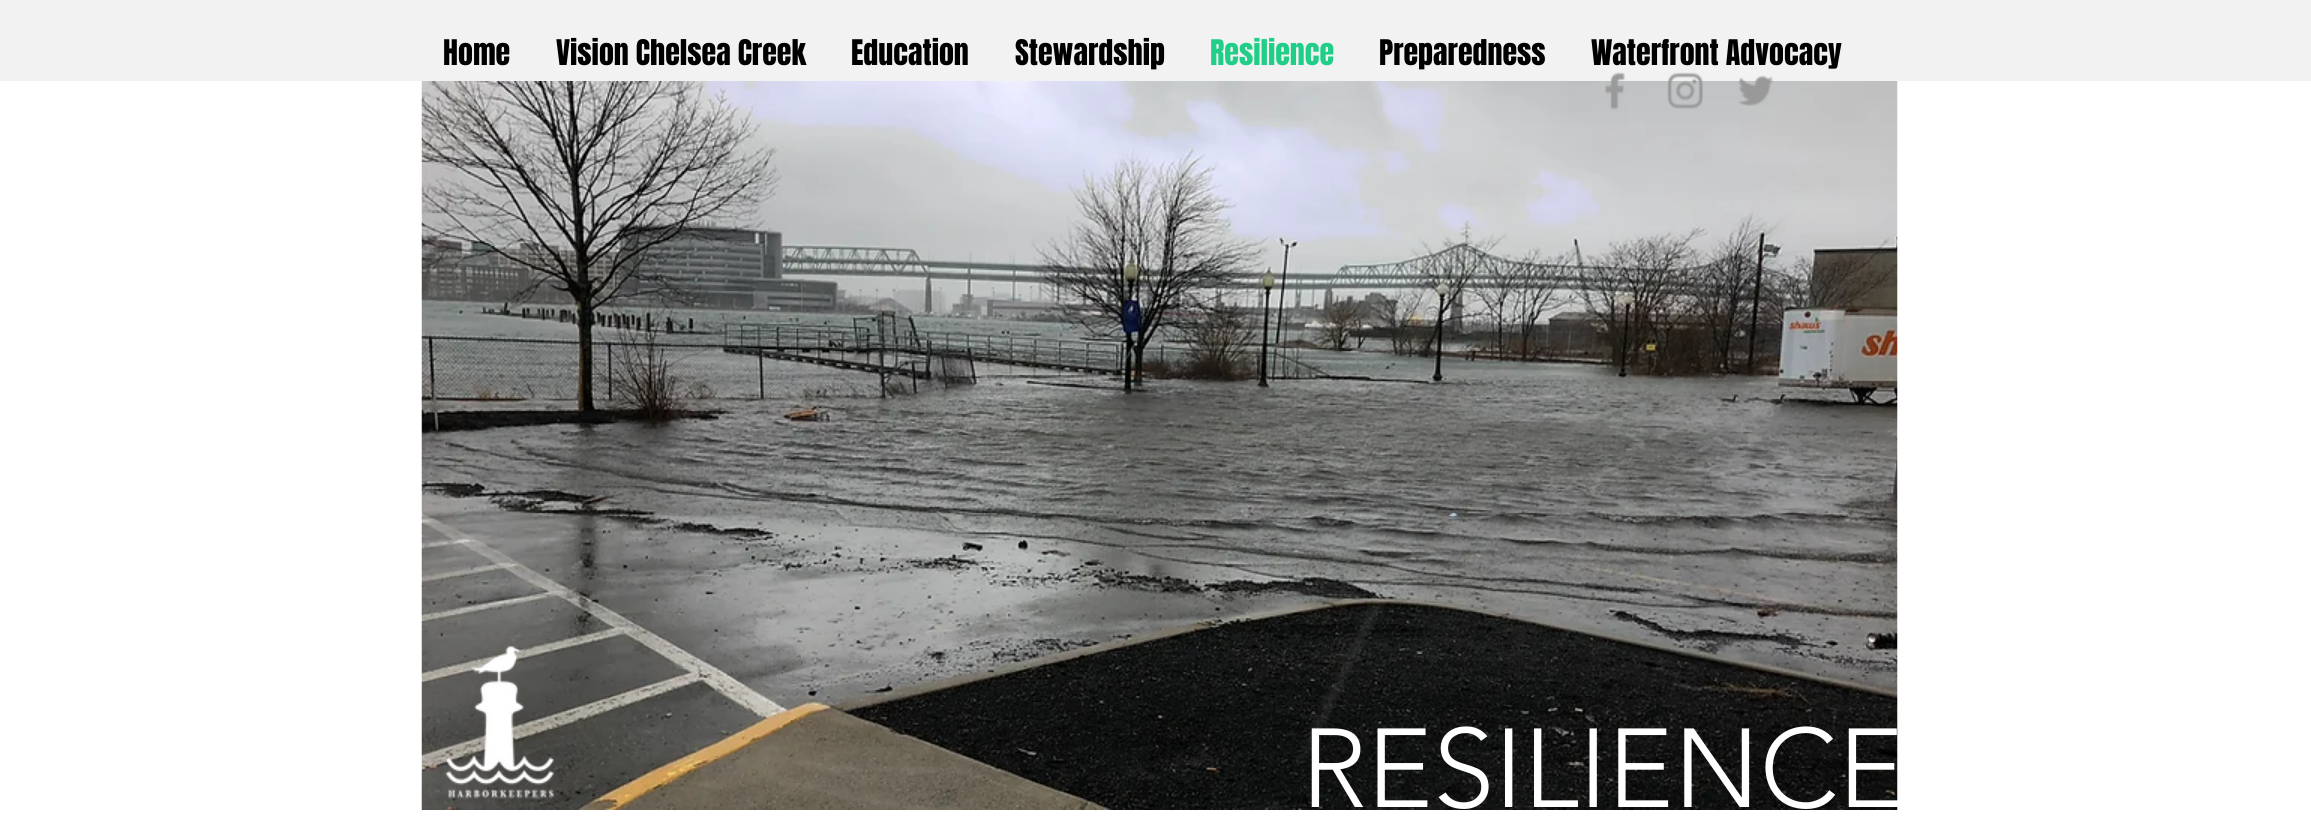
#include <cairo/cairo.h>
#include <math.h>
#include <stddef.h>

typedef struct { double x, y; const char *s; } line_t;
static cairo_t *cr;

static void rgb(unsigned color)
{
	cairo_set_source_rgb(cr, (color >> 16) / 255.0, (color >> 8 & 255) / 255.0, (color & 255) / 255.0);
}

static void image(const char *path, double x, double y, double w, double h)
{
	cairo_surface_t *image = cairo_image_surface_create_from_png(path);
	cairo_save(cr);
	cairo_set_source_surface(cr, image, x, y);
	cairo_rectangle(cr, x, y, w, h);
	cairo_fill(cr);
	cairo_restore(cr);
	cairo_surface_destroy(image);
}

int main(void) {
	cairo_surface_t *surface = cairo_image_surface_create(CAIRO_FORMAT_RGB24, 2311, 822);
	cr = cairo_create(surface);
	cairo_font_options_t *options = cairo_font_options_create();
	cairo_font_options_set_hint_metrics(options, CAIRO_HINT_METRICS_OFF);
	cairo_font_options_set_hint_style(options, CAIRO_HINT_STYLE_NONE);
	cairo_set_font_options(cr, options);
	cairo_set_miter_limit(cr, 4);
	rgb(0xffffff);
	cairo_paint(cr);
	rgb(0xf2f2f2);
	cairo_rectangle(cr, 0, 0, 2311, 81);
	cairo_fill(cr);
	image("img/4.png", 421, 81, 1477, 729);
	image("img/1.png", 1605, 72, 20, 38);
	image("img/2.png", 1667, 72, 36, 37);
	image("img/3.png", 1738, 75, 36, 31);
	image("img/5.png", 445, 645, 109, 154);
	cairo_select_font_face(cr, "Anton", CAIRO_FONT_SLANT_NORMAL, CAIRO_FONT_WEIGHT_NORMAL);
	cairo_set_font_size(cr, 30);
	rgb(0x000000);
	{
		static const line_t items[] = {
			{443, 65, "Home"},
			{556, 65, "Vision Chelsea Creek"},
			{851, 65, "Education"},
			{1015, 65, "Stewardship"},
		};
		for (size_t i = 0; i < sizeof items / sizeof *items; i++) {
			cairo_move_to(cr, items[i].x, items[i].y);
			cairo_show_text(cr, items[i].s);
		}
	}
	rgb(0x20ce88);
	cairo_move_to(cr, 1210, 65);
	cairo_show_text(cr, "Resilience");
	rgb(0x000000);
	cairo_move_to(cr, 1379, 65);
	cairo_show_text(cr, "Preparedness");
	cairo_move_to(cr, 1591, 65);
	cairo_show_text(cr, "Waterfront Advocacy");
	cairo_select_font_face(cr, "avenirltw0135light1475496 Light", CAIRO_FONT_SLANT_NORMAL, CAIRO_FONT_WEIGHT_NORMAL);
	cairo_set_font_size(cr, 111);
	rgb(0xffffff);
	cairo_move_to(cr, 1301, 807);
	cairo_show_text(cr, "RESILIENCE");
	cairo_surface_write_to_png(surface, "page.png");
	cairo_font_options_destroy(options);
	cairo_destroy(cr);
	cairo_surface_destroy(surface);
	return 0;
}
